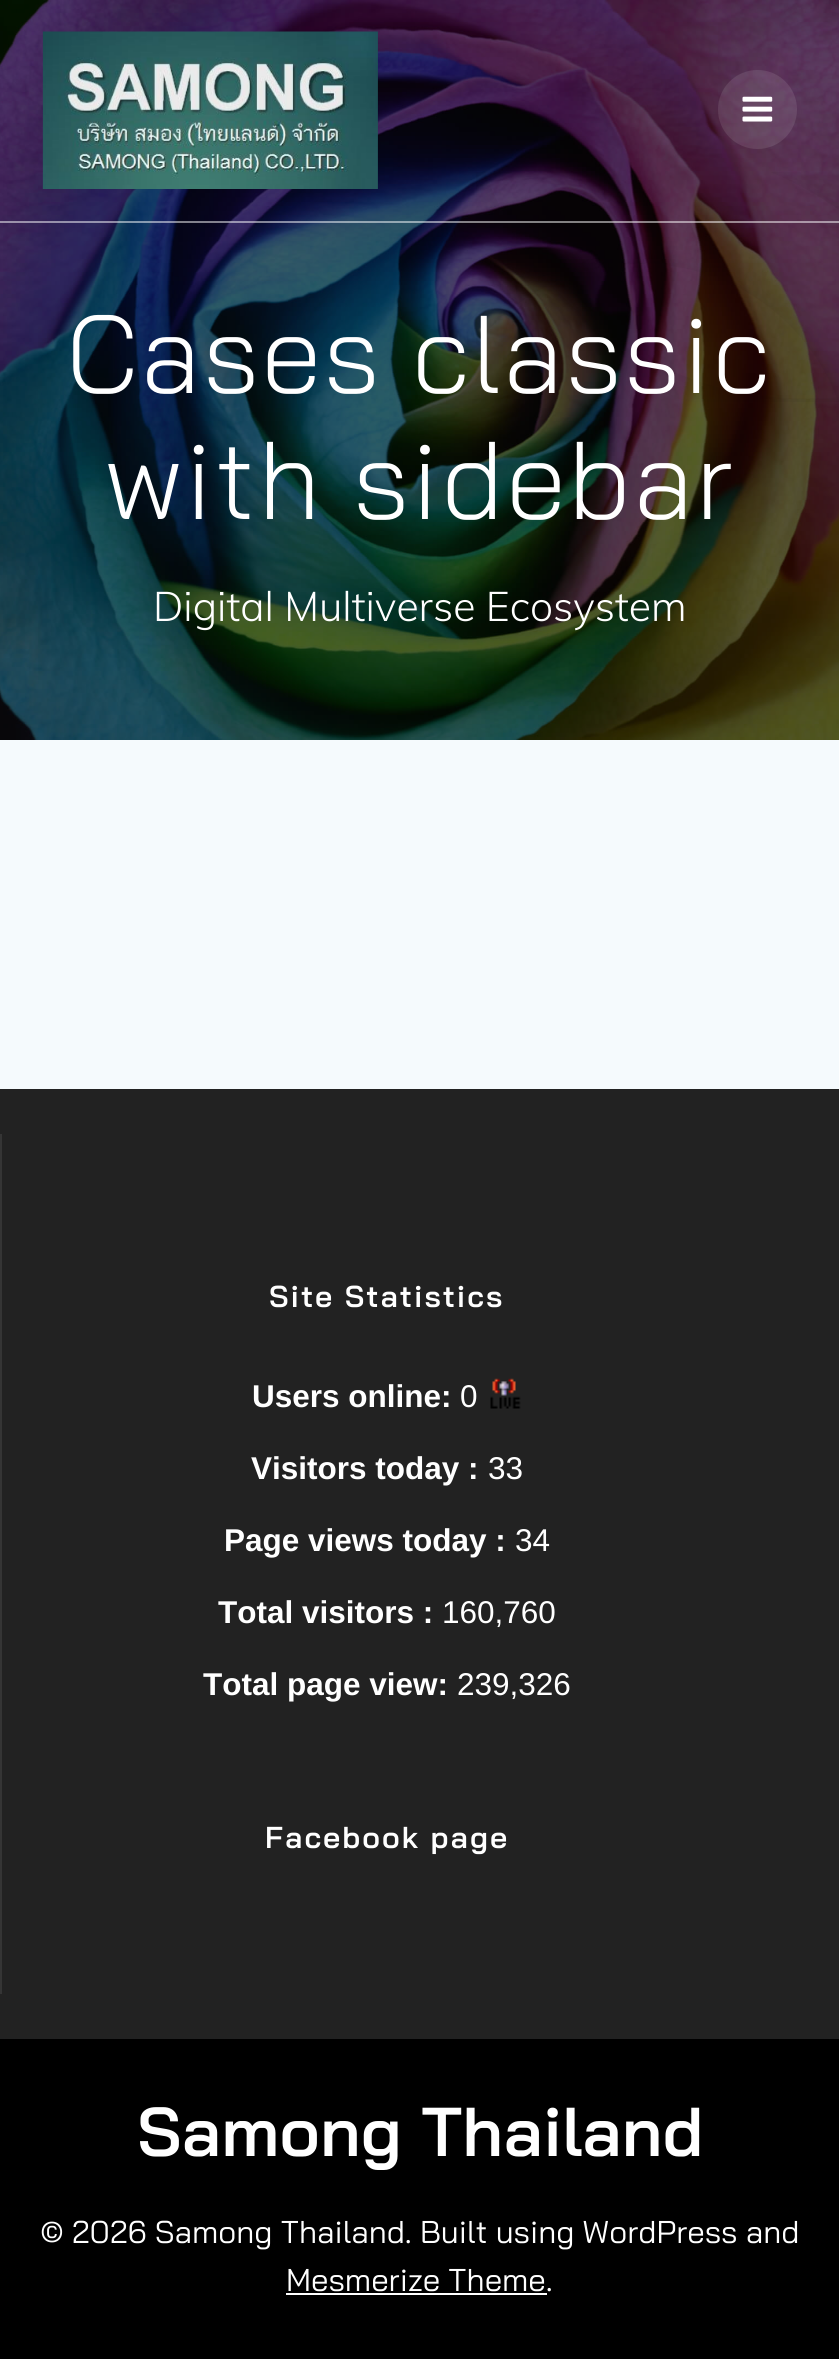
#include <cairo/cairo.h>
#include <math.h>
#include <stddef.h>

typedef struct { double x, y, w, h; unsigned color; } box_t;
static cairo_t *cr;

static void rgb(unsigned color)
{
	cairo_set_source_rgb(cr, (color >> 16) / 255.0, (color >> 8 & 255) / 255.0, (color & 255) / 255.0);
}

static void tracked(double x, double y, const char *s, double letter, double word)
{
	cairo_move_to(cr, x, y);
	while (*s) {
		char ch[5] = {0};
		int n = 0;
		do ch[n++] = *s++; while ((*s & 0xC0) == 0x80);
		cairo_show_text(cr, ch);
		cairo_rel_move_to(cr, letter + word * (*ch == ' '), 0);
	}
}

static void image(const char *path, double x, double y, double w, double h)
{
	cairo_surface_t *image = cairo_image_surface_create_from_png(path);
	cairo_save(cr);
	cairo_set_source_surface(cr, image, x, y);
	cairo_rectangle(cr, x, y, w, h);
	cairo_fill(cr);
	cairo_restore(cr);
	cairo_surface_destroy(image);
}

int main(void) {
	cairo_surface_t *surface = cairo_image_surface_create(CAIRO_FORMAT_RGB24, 839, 2359);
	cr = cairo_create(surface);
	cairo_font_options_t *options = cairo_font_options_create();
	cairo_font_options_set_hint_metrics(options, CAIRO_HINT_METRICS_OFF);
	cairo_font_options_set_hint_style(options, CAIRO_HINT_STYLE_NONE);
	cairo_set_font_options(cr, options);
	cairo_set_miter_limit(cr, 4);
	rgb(0xffffff);
	cairo_paint(cr);
	image("img/3.png", 0, 0, 839, 740);
	image("img/4.png", 476, 172, 363, 230);
	cairo_set_source_rgba(cr, 1, 1, 1, 0.5);
	cairo_rectangle(cr, 0, 221, 839, 2);
	cairo_fill(cr);
	image("img/1.png", 42, 31, 336, 158);
	cairo_set_source_rgba(cr, 1, 1, 1, 0.1);
	cairo_arc(cr, 757.5, 109.5, 39.5, 0, 2 * M_PI);
	cairo_fill(cr);
	image("img/2.png", 742, 96, 31, 26);
	{
		static const box_t items[] = {
			{0, 740, 839, 349, 0xf5fafd},
			{0, 1089, 839, 950, 0x222222},
			{0, 1134, 2, 860, 0x353535},
		};
		for (size_t i = 0; i < sizeof items / sizeof *items; i++) {
			rgb(items[i].color);
			cairo_rectangle(cr, items[i].x, items[i].y, items[i].w, items[i].h);
			cairo_fill(cr);
		}
	}
	image("img/5.png", 490, 1378, 31, 31);
	rgb(0x000000);
	cairo_rectangle(cr, 0, 2039, 839, 320);
	cairo_fill(cr);
	rgb(0xffffff);
	cairo_rectangle(cr, 286, 2293, 261, 2);
	cairo_fill(cr);
	cairo_select_font_face(cr, "Bai Jamjuree Light", CAIRO_FONT_SLANT_NORMAL, CAIRO_FONT_WEIGHT_NORMAL);
	cairo_set_font_size(cr, 110.25);
	tracked(66, 393, "Cases classic", 2, 0);
	tracked(104, 519, "with sidebar", 2, 0);
	cairo_select_font_face(cr, "Muli Light", CAIRO_FONT_SLANT_NORMAL, CAIRO_FONT_WEIGHT_NORMAL);
	cairo_set_font_size(cr, 41);
	cairo_move_to(cr, 153, 621);
	cairo_show_text(cr, "Digital Multiverse Ecosystem");
	cairo_select_font_face(cr, "Bai Jamjuree SemiBold", CAIRO_FONT_SLANT_NORMAL, CAIRO_FONT_WEIGHT_NORMAL);
	cairo_set_font_size(cr, 30.25);
	tracked(269, 1307, "Site Statistics", 2, 0);
	cairo_select_font_face(cr, "Liberation Sans", CAIRO_FONT_SLANT_NORMAL, CAIRO_FONT_WEIGHT_BOLD);
	cairo_set_font_size(cr, 31.5);
	cairo_move_to(cr, 252, 1407);
	cairo_show_text(cr, "Users online:");
	cairo_select_font_face(cr, "Liberation Sans", CAIRO_FONT_SLANT_NORMAL, CAIRO_FONT_WEIGHT_NORMAL);
	cairo_move_to(cr, 460, 1407);
	cairo_show_text(cr, "0");
	cairo_select_font_face(cr, "Liberation Sans", CAIRO_FONT_SLANT_NORMAL, CAIRO_FONT_WEIGHT_BOLD);
	cairo_move_to(cr, 251, 1479);
	cairo_show_text(cr, "Visitors today :");
	cairo_select_font_face(cr, "Liberation Sans", CAIRO_FONT_SLANT_NORMAL, CAIRO_FONT_WEIGHT_NORMAL);
	cairo_move_to(cr, 488, 1479);
	cairo_show_text(cr, "33");
	cairo_select_font_face(cr, "Liberation Sans", CAIRO_FONT_SLANT_NORMAL, CAIRO_FONT_WEIGHT_BOLD);
	cairo_move_to(cr, 224, 1551);
	cairo_show_text(cr, "Page views today :");
	cairo_select_font_face(cr, "Liberation Sans", CAIRO_FONT_SLANT_NORMAL, CAIRO_FONT_WEIGHT_NORMAL);
	cairo_move_to(cr, 515, 1551);
	cairo_show_text(cr, "34");
	cairo_select_font_face(cr, "Liberation Sans", CAIRO_FONT_SLANT_NORMAL, CAIRO_FONT_WEIGHT_BOLD);
	cairo_move_to(cr, 218, 1623);
	cairo_show_text(cr, "Total visitors :");
	cairo_select_font_face(cr, "Liberation Sans", CAIRO_FONT_SLANT_NORMAL, CAIRO_FONT_WEIGHT_NORMAL);
	cairo_move_to(cr, 442, 1623);
	cairo_show_text(cr, "160,760");
	cairo_select_font_face(cr, "Liberation Sans", CAIRO_FONT_SLANT_NORMAL, CAIRO_FONT_WEIGHT_BOLD);
	cairo_move_to(cr, 203, 1695);
	cairo_show_text(cr, "Total page view:");
	cairo_select_font_face(cr, "Liberation Sans", CAIRO_FONT_SLANT_NORMAL, CAIRO_FONT_WEIGHT_NORMAL);
	cairo_move_to(cr, 457, 1695);
	cairo_show_text(cr, "239,326");
	cairo_select_font_face(cr, "Bai Jamjuree SemiBold", CAIRO_FONT_SLANT_NORMAL, CAIRO_FONT_WEIGHT_NORMAL);
	cairo_set_font_size(cr, 30.25);
	tracked(265, 1848, "Facebook page", 2, 0);
	cairo_set_font_size(cr, 69);
	cairo_move_to(cr, 137, 2156);
	cairo_show_text(cr, "Samong Thailand");
	cairo_select_font_face(cr, "Bai Jamjuree", CAIRO_FONT_SLANT_NORMAL, CAIRO_FONT_WEIGHT_NORMAL);
	cairo_set_font_size(cr, 31.5);
	cairo_move_to(cr, 40, 2243);
	cairo_show_text(cr, "© 2026 Samong Thailand. Built using WordPress and");
	cairo_move_to(cr, 286, 2291);
	cairo_show_text(cr, "Mesmerize Theme.");
	cairo_surface_write_to_png(surface, "page.png");
	cairo_font_options_destroy(options);
	cairo_destroy(cr);
	cairo_surface_destroy(surface);
	return 0;
}
